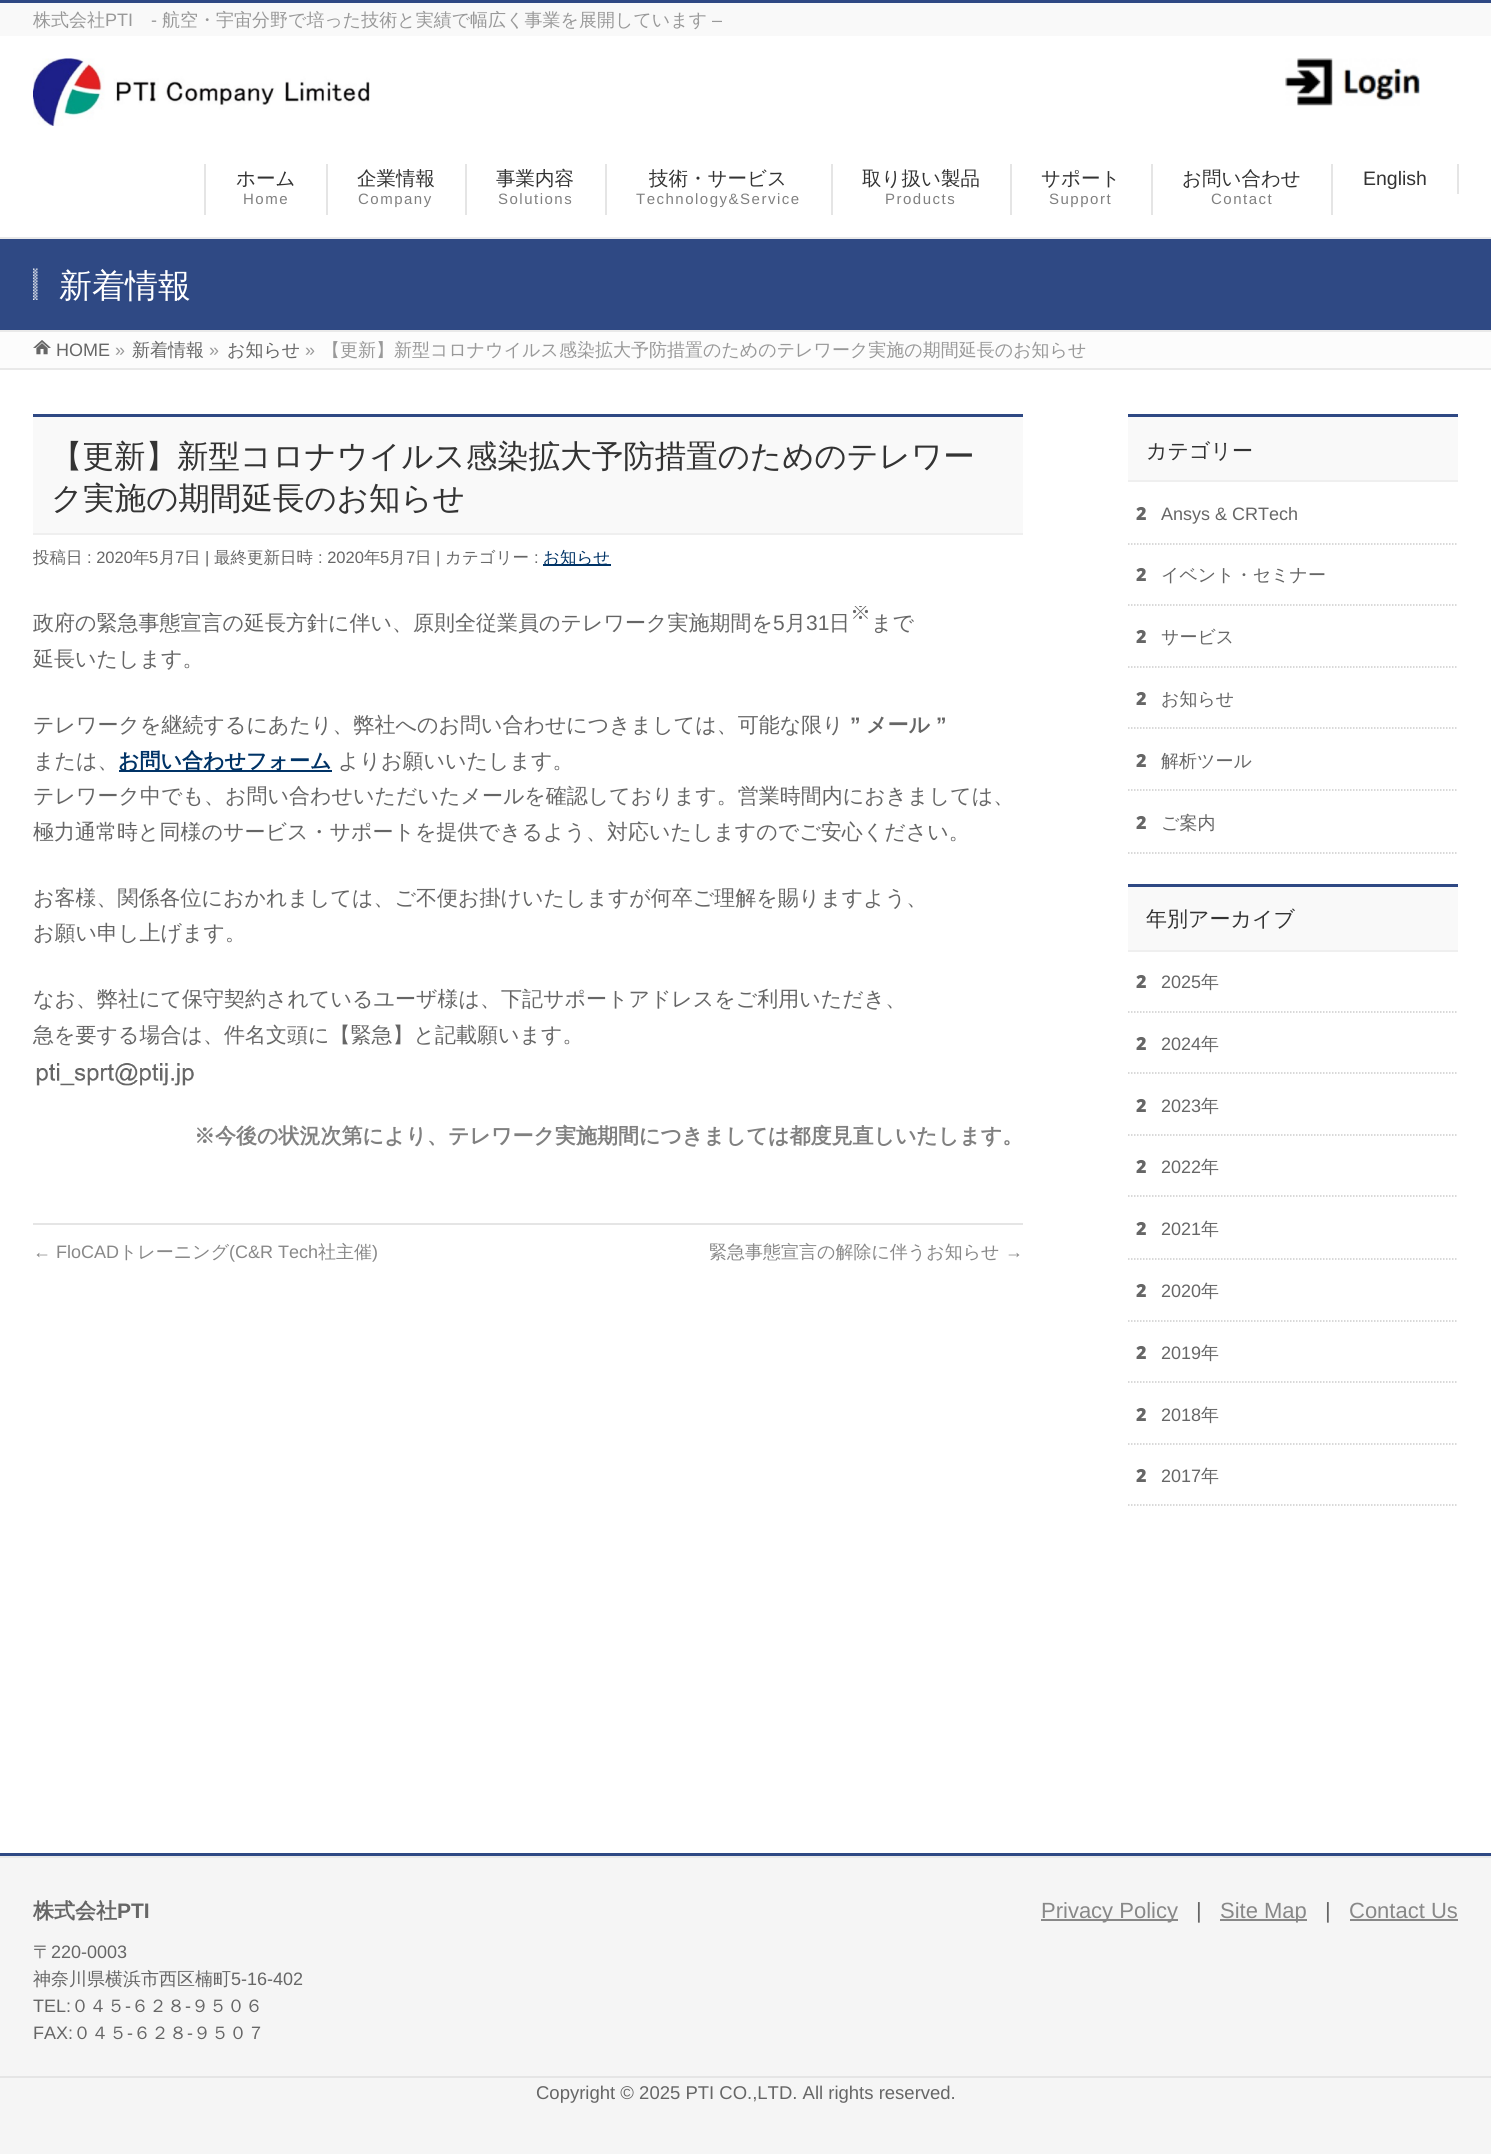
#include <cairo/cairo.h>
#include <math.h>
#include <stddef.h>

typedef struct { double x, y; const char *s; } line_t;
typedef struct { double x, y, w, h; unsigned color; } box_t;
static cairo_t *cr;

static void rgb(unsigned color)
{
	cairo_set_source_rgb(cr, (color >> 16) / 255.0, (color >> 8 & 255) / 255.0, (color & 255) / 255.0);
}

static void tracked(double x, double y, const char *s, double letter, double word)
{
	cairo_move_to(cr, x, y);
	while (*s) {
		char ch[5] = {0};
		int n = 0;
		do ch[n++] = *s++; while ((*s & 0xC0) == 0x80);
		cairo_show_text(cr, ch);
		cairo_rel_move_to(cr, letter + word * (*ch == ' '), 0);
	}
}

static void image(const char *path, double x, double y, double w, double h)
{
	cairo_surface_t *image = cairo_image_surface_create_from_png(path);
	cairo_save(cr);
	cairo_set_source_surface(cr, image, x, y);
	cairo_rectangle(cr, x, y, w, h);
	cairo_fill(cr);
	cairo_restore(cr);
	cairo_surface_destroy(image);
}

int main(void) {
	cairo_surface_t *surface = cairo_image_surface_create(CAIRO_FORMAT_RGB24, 1491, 2155);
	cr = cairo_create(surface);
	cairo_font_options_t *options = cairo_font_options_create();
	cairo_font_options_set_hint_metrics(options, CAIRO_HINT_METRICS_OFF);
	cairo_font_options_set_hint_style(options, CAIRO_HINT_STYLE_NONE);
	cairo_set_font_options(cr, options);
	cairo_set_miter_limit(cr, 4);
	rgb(0xffffff);
	cairo_paint(cr);
	rgb(0xf9f9f9);
	cairo_rectangle(cr, 0, 3, 1491, 33);
	cairo_fill(cr);
	rgb(0x2f4984);
	cairo_rectangle(cr, 0, 0, 1491, 3);
	cairo_fill(cr);
	image("img/1.png", 33, 58, 337, 68);
	image("img/2.png", 1285, 58, 135, 48);
	{
		static const box_t items[] = {
			{326, 164, 2, 51, 0xe5e5e5},
			{204, 164, 2, 51, 0xe5e5e5},
			{465, 164, 2, 51, 0xe5e5e5},
			{605, 164, 2, 51, 0xe5e5e5},
			{831, 164, 2, 51, 0xe5e5e5},
			{1010, 164, 2, 51, 0xe5e5e5},
			{1151, 164, 2, 51, 0xe5e5e5},
			{1331, 164, 2, 51, 0xe5e5e5},
			{1457, 164, 2, 30, 0xe5e5e5},
			{0, 239, 1491, 91, 0x2f4984},
			{0, 237, 1491, 2, 0xe9e9e9},
			{0, 330, 1491, 2, 0xe9e9e9},
		};
		for (size_t i = 0; i < sizeof items / sizeof *items; i++) {
			rgb(items[i].color);
			cairo_rectangle(cr, items[i].x, items[i].y, items[i].w, items[i].h);
			cairo_fill(cr);
		}
	}
	image("img/3.png", 33, 268, 5, 32);
	rgb(0xfcfcfc);
	cairo_rectangle(cr, 0, 332, 1491, 36);
	cairo_fill(cr);
	image("img/4.png", 33, 340, 18, 15);
	{
		static const box_t items[] = {
			{0, 368, 1491, 2, 0xe9e9e9},
			{33, 417, 990, 116, 0xf9f9f9},
			{33, 414, 990, 3, 0x2f4984},
			{33, 533, 990, 2, 0xefefef},
			{543, 564, 68, 2, 0x003366},
			{119, 770, 213, 2, 0x003366},
		};
		for (size_t i = 0; i < sizeof items / sizeof *items; i++) {
			rgb(items[i].color);
			cairo_rectangle(cr, items[i].x, items[i].y, items[i].w, items[i].h);
			cairo_fill(cr);
		}
	}
	image("img/5.png", 36, 1063, 158, 23);
	{
		static const box_t items[] = {
			{33, 1223, 990, 2, 0xe5e5e5},
			{1128, 417, 330, 63, 0xf9f9f9},
			{1128, 414, 330, 3, 0x2f4984},
			{1128, 480, 330, 2, 0xefefef},
		};
		for (size_t i = 0; i < sizeof items / sizeof *items; i++) {
			rgb(items[i].color);
			cairo_rectangle(cr, items[i].x, items[i].y, items[i].w, items[i].h);
			cairo_fill(cr);
		}
	}
	cairo_new_path(cr);
	cairo_move_to(cr, 1128, 544);
	cairo_line_to(cr, 1458, 544);
	rgb(0xcccccc);
	cairo_set_line_width(cr, 1.5);
	cairo_set_dash(cr, (double[]){1.5, 1.5}, 2, 0);
	cairo_stroke(cr);
	cairo_new_path(cr);
	cairo_move_to(cr, 1128, 605);
	cairo_line_to(cr, 1458, 605);
	cairo_stroke(cr);
	cairo_new_path(cr);
	cairo_move_to(cr, 1128, 667);
	cairo_line_to(cr, 1458, 667);
	cairo_stroke(cr);
	cairo_new_path(cr);
	cairo_move_to(cr, 1128, 728);
	cairo_line_to(cr, 1458, 728);
	cairo_stroke(cr);
	cairo_new_path(cr);
	cairo_move_to(cr, 1128, 790);
	cairo_line_to(cr, 1458, 790);
	cairo_stroke(cr);
	cairo_new_path(cr);
	cairo_move_to(cr, 1128, 853);
	cairo_line_to(cr, 1458, 853);
	cairo_stroke(cr);
	{
		static const box_t items[] = {
			{1128, 887, 330, 63, 0xf9f9f9},
			{1128, 884, 330, 3, 0x2f4984},
			{1128, 950, 330, 2, 0xefefef},
		};
		for (size_t i = 0; i < sizeof items / sizeof *items; i++) {
			rgb(items[i].color);
			cairo_rectangle(cr, items[i].x, items[i].y, items[i].w, items[i].h);
			cairo_fill(cr);
		}
	}
	cairo_new_path(cr);
	cairo_move_to(cr, 1128, 1012);
	cairo_line_to(cr, 1458, 1012);
	rgb(0xcccccc);
	cairo_stroke(cr);
	cairo_new_path(cr);
	cairo_move_to(cr, 1128, 1073);
	cairo_line_to(cr, 1458, 1073);
	cairo_stroke(cr);
	cairo_new_path(cr);
	cairo_move_to(cr, 1128, 1135);
	cairo_line_to(cr, 1458, 1135);
	cairo_stroke(cr);
	cairo_new_path(cr);
	cairo_move_to(cr, 1128, 1196);
	cairo_line_to(cr, 1458, 1196);
	cairo_stroke(cr);
	cairo_new_path(cr);
	cairo_move_to(cr, 1128, 1259);
	cairo_line_to(cr, 1458, 1259);
	cairo_stroke(cr);
	cairo_new_path(cr);
	cairo_move_to(cr, 1128, 1321);
	cairo_line_to(cr, 1458, 1321);
	cairo_stroke(cr);
	cairo_new_path(cr);
	cairo_move_to(cr, 1128, 1382);
	cairo_line_to(cr, 1458, 1382);
	cairo_stroke(cr);
	cairo_new_path(cr);
	cairo_move_to(cr, 1128, 1444);
	cairo_line_to(cr, 1458, 1444);
	cairo_stroke(cr);
	cairo_new_path(cr);
	cairo_move_to(cr, 1128, 1505);
	cairo_line_to(cr, 1458, 1505);
	cairo_stroke(cr);
	{
		static const box_t items[] = {
			{0, 1853, 1491, 3, 0x2f4984},
			{0, 1856, 1491, 2, 0xe9e9e9},
			{0, 1858, 1491, 218, 0xf5f5f5},
			{1041, 1919, 137, 2, 0x888888},
			{1220, 1919, 87, 2, 0x888888},
			{1350, 1919, 108, 2, 0x888888},
			{0, 2078, 1491, 76, 0xf5f5f5},
			{0, 2076, 1491, 2, 0xe5e5e5},
		};
		for (size_t i = 0; i < sizeof items / sizeof *items; i++) {
			rgb(items[i].color);
			cairo_rectangle(cr, items[i].x, items[i].y, items[i].w, items[i].h);
			cairo_fill(cr);
		}
	}
	cairo_select_font_face(cr, "WenQuanYi Zen Hei Medium", CAIRO_FONT_SLANT_NORMAL, CAIRO_FONT_WEIGHT_NORMAL);
	cairo_set_font_size(cr, 18);
	rgb(0x999999);
	cairo_move_to(cr, 33, 26);
	cairo_show_text(cr, "株式会社");
	cairo_select_font_face(cr, "Liberation Sans", CAIRO_FONT_SLANT_NORMAL, CAIRO_FONT_WEIGHT_NORMAL);
	cairo_move_to(cr, 105, 26);
	cairo_show_text(cr, "PTI");
	cairo_move_to(cr, 151, 26);
	cairo_show_text(cr, "-");
	cairo_select_font_face(cr, "WenQuanYi Zen Hei Medium", CAIRO_FONT_SLANT_NORMAL, CAIRO_FONT_WEIGHT_NORMAL);
	cairo_move_to(cr, 162, 26);
	cairo_show_text(cr, "航空・宇宙分野で培った技術と実績で幅広く事業を展開しています");
	cairo_select_font_face(cr, "Liberation Sans", CAIRO_FONT_SLANT_NORMAL, CAIRO_FONT_WEIGHT_NORMAL);
	cairo_move_to(cr, 712, 26);
	cairo_show_text(cr, "–");
	cairo_select_font_face(cr, "WenQuanYi Zen Hei Medium", CAIRO_FONT_SLANT_NORMAL, CAIRO_FONT_WEIGHT_NORMAL);
	cairo_set_font_size(cr, 19.5);
	rgb(0x333333);
	cairo_move_to(cr, 236, 185);
	cairo_show_text(cr, "ホーム");
	cairo_select_font_face(cr, "Liberation Sans", CAIRO_FONT_SLANT_NORMAL, CAIRO_FONT_WEIGHT_NORMAL);
	cairo_set_font_size(cr, 15);
	rgb(0x808080);
	tracked(243, 204, "Home", 1.5, 0);
	cairo_select_font_face(cr, "WenQuanYi Zen Hei Medium", CAIRO_FONT_SLANT_NORMAL, CAIRO_FONT_WEIGHT_NORMAL);
	cairo_set_font_size(cr, 19.5);
	rgb(0x333333);
	cairo_move_to(cr, 357, 185);
	cairo_show_text(cr, "企業情報");
	cairo_select_font_face(cr, "Liberation Sans", CAIRO_FONT_SLANT_NORMAL, CAIRO_FONT_WEIGHT_NORMAL);
	cairo_set_font_size(cr, 15);
	rgb(0x808080);
	tracked(358, 204, "Company", 1.5, 0);
	cairo_select_font_face(cr, "WenQuanYi Zen Hei Medium", CAIRO_FONT_SLANT_NORMAL, CAIRO_FONT_WEIGHT_NORMAL);
	cairo_set_font_size(cr, 19.5);
	rgb(0x333333);
	cairo_move_to(cr, 496, 185);
	cairo_show_text(cr, "事業内容");
	cairo_select_font_face(cr, "Liberation Sans", CAIRO_FONT_SLANT_NORMAL, CAIRO_FONT_WEIGHT_NORMAL);
	cairo_set_font_size(cr, 15);
	rgb(0x808080);
	tracked(498, 204, "Solutions", 1.5, 0);
	cairo_select_font_face(cr, "WenQuanYi Zen Hei Medium", CAIRO_FONT_SLANT_NORMAL, CAIRO_FONT_WEIGHT_NORMAL);
	cairo_set_font_size(cr, 19.5);
	rgb(0x333333);
	cairo_move_to(cr, 649, 185);
	cairo_show_text(cr, "技術・サービス");
	cairo_select_font_face(cr, "Liberation Sans", CAIRO_FONT_SLANT_NORMAL, CAIRO_FONT_WEIGHT_NORMAL);
	cairo_set_font_size(cr, 15);
	rgb(0x808080);
	tracked(636, 204, "Technology&Service", 1.5, 0);
	cairo_select_font_face(cr, "WenQuanYi Zen Hei Medium", CAIRO_FONT_SLANT_NORMAL, CAIRO_FONT_WEIGHT_NORMAL);
	cairo_set_font_size(cr, 19.5);
	rgb(0x333333);
	cairo_move_to(cr, 862, 185);
	cairo_show_text(cr, "取り扱い製品");
	cairo_select_font_face(cr, "Liberation Sans", CAIRO_FONT_SLANT_NORMAL, CAIRO_FONT_WEIGHT_NORMAL);
	cairo_set_font_size(cr, 15);
	rgb(0x808080);
	tracked(885, 204, "Products", 1.5, 0);
	cairo_select_font_face(cr, "WenQuanYi Zen Hei Medium", CAIRO_FONT_SLANT_NORMAL, CAIRO_FONT_WEIGHT_NORMAL);
	cairo_set_font_size(cr, 19.5);
	rgb(0x333333);
	cairo_move_to(cr, 1041, 185);
	cairo_show_text(cr, "サポート");
	cairo_select_font_face(cr, "Liberation Sans", CAIRO_FONT_SLANT_NORMAL, CAIRO_FONT_WEIGHT_NORMAL);
	cairo_set_font_size(cr, 15);
	rgb(0x808080);
	tracked(1049, 204, "Support", 1.5, 0);
	cairo_select_font_face(cr, "WenQuanYi Zen Hei Medium", CAIRO_FONT_SLANT_NORMAL, CAIRO_FONT_WEIGHT_NORMAL);
	cairo_set_font_size(cr, 19.5);
	rgb(0x333333);
	cairo_move_to(cr, 1182, 185);
	cairo_show_text(cr, "お問い合わせ");
	cairo_select_font_face(cr, "Liberation Sans", CAIRO_FONT_SLANT_NORMAL, CAIRO_FONT_WEIGHT_NORMAL);
	cairo_set_font_size(cr, 15);
	rgb(0x808080);
	tracked(1211, 204, "Contact", 1.5, 0);
	cairo_set_font_size(cr, 19.5);
	rgb(0x333333);
	cairo_move_to(cr, 1363, 185);
	cairo_show_text(cr, "English");
	cairo_select_font_face(cr, "WenQuanYi Zen Hei Medium", CAIRO_FONT_SLANT_NORMAL, CAIRO_FONT_WEIGHT_NORMAL);
	cairo_set_font_size(cr, 33);
	rgb(0xffffff);
	cairo_move_to(cr, 59, 297);
	cairo_show_text(cr, "新着情報");
	cairo_select_font_face(cr, "Liberation Sans", CAIRO_FONT_SLANT_NORMAL, CAIRO_FONT_WEIGHT_NORMAL);
	cairo_set_font_size(cr, 18);
	rgb(0x666666);
	cairo_move_to(cr, 56, 356);
	cairo_show_text(cr, "HOME");
	rgb(0x999999);
	cairo_move_to(cr, 115, 356);
	cairo_show_text(cr, "»");
	cairo_select_font_face(cr, "WenQuanYi Zen Hei Medium", CAIRO_FONT_SLANT_NORMAL, CAIRO_FONT_WEIGHT_NORMAL);
	rgb(0x666666);
	cairo_move_to(cr, 132, 356);
	cairo_show_text(cr, "新着情報");
	cairo_select_font_face(cr, "Liberation Sans", CAIRO_FONT_SLANT_NORMAL, CAIRO_FONT_WEIGHT_NORMAL);
	rgb(0x999999);
	cairo_move_to(cr, 209, 356);
	cairo_show_text(cr, "»");
	cairo_select_font_face(cr, "WenQuanYi Zen Hei Medium", CAIRO_FONT_SLANT_NORMAL, CAIRO_FONT_WEIGHT_NORMAL);
	rgb(0x666666);
	cairo_move_to(cr, 227, 356);
	cairo_show_text(cr, "お知らせ");
	cairo_select_font_face(cr, "Liberation Sans", CAIRO_FONT_SLANT_NORMAL, CAIRO_FONT_WEIGHT_NORMAL);
	rgb(0x999999);
	cairo_move_to(cr, 305, 356);
	cairo_show_text(cr, "»");
	cairo_select_font_face(cr, "WenQuanYi Zen Hei Medium", CAIRO_FONT_SLANT_NORMAL, CAIRO_FONT_WEIGHT_NORMAL);
	cairo_move_to(cr, 322, 356);
	cairo_show_text(cr, "【更新】新型コロナウイルス感染拡大予防措置のためのテレワーク実施の期間延長のお知らせ");
	cairo_set_font_size(cr, 31.5);
	rgb(0x333333);
	cairo_move_to(cr, 51, 467);
	cairo_show_text(cr, "【更新】新型コロナウイルス感染拡大予防措置のためのテレワー");
	cairo_move_to(cr, 51, 509);
	cairo_show_text(cr, "ク実施の期間延長のお知らせ");
	cairo_set_font_size(cr, 16.5);
	rgb(0x666666);
	cairo_move_to(cr, 33, 563);
	cairo_show_text(cr, "投稿日");
	cairo_select_font_face(cr, "Liberation Sans", CAIRO_FONT_SLANT_NORMAL, CAIRO_FONT_WEIGHT_NORMAL);
	cairo_move_to(cr, 87, 563);
	cairo_show_text(cr, ": 2020");
	cairo_select_font_face(cr, "WenQuanYi Zen Hei Medium", CAIRO_FONT_SLANT_NORMAL, CAIRO_FONT_WEIGHT_NORMAL);
	cairo_move_to(cr, 133, 563);
	cairo_show_text(cr, "年");
	cairo_select_font_face(cr, "Liberation Sans", CAIRO_FONT_SLANT_NORMAL, CAIRO_FONT_WEIGHT_NORMAL);
	cairo_move_to(cr, 149, 563);
	cairo_show_text(cr, "5");
	cairo_select_font_face(cr, "WenQuanYi Zen Hei Medium", CAIRO_FONT_SLANT_NORMAL, CAIRO_FONT_WEIGHT_NORMAL);
	cairo_move_to(cr, 159, 563);
	cairo_show_text(cr, "月");
	cairo_select_font_face(cr, "Liberation Sans", CAIRO_FONT_SLANT_NORMAL, CAIRO_FONT_WEIGHT_NORMAL);
	cairo_move_to(cr, 175, 563);
	cairo_show_text(cr, "7");
	cairo_select_font_face(cr, "WenQuanYi Zen Hei Medium", CAIRO_FONT_SLANT_NORMAL, CAIRO_FONT_WEIGHT_NORMAL);
	cairo_move_to(cr, 184, 563);
	cairo_show_text(cr, "日");
	cairo_select_font_face(cr, "Liberation Sans", CAIRO_FONT_SLANT_NORMAL, CAIRO_FONT_WEIGHT_NORMAL);
	cairo_move_to(cr, 205, 563);
	cairo_show_text(cr, "|");
	cairo_select_font_face(cr, "WenQuanYi Zen Hei Medium", CAIRO_FONT_SLANT_NORMAL, CAIRO_FONT_WEIGHT_NORMAL);
	cairo_move_to(cr, 214, 563);
	cairo_show_text(cr, "最終更新日時");
	cairo_select_font_face(cr, "Liberation Sans", CAIRO_FONT_SLANT_NORMAL, CAIRO_FONT_WEIGHT_NORMAL);
	cairo_move_to(cr, 318, 563);
	cairo_show_text(cr, ": 2020");
	cairo_select_font_face(cr, "WenQuanYi Zen Hei Medium", CAIRO_FONT_SLANT_NORMAL, CAIRO_FONT_WEIGHT_NORMAL);
	cairo_move_to(cr, 364, 563);
	cairo_show_text(cr, "年");
	cairo_select_font_face(cr, "Liberation Sans", CAIRO_FONT_SLANT_NORMAL, CAIRO_FONT_WEIGHT_NORMAL);
	cairo_move_to(cr, 380, 563);
	cairo_show_text(cr, "5");
	cairo_select_font_face(cr, "WenQuanYi Zen Hei Medium", CAIRO_FONT_SLANT_NORMAL, CAIRO_FONT_WEIGHT_NORMAL);
	cairo_move_to(cr, 389, 563);
	cairo_show_text(cr, "月");
	cairo_select_font_face(cr, "Liberation Sans", CAIRO_FONT_SLANT_NORMAL, CAIRO_FONT_WEIGHT_NORMAL);
	cairo_move_to(cr, 406, 563);
	cairo_show_text(cr, "7");
	cairo_select_font_face(cr, "WenQuanYi Zen Hei Medium", CAIRO_FONT_SLANT_NORMAL, CAIRO_FONT_WEIGHT_NORMAL);
	cairo_move_to(cr, 415, 563);
	cairo_show_text(cr, "日");
	cairo_select_font_face(cr, "Liberation Sans", CAIRO_FONT_SLANT_NORMAL, CAIRO_FONT_WEIGHT_NORMAL);
	cairo_move_to(cr, 436, 563);
	cairo_show_text(cr, "|");
	cairo_select_font_face(cr, "WenQuanYi Zen Hei Medium", CAIRO_FONT_SLANT_NORMAL, CAIRO_FONT_WEIGHT_NORMAL);
	cairo_move_to(cr, 445, 563);
	cairo_show_text(cr, "カテゴリー");
	cairo_select_font_face(cr, "Liberation Sans", CAIRO_FONT_SLANT_NORMAL, CAIRO_FONT_WEIGHT_NORMAL);
	cairo_move_to(cr, 534, 563);
	cairo_show_text(cr, ":");
	cairo_select_font_face(cr, "WenQuanYi Zen Hei Medium", CAIRO_FONT_SLANT_NORMAL, CAIRO_FONT_WEIGHT_NORMAL);
	rgb(0x003366);
	cairo_move_to(cr, 543, 563);
	cairo_show_text(cr, "お知らせ");
	cairo_set_font_size(cr, 21);
	rgb(0x666666);
	cairo_move_to(cr, 33, 630);
	cairo_show_text(cr, "政府の緊急事態宣言の延長方針に伴い、原則全従業員のテレワーク実施期間を");
	cairo_select_font_face(cr, "Liberation Sans", CAIRO_FONT_SLANT_NORMAL, CAIRO_FONT_WEIGHT_NORMAL);
	cairo_move_to(cr, 773, 630);
	cairo_show_text(cr, "5");
	cairo_select_font_face(cr, "WenQuanYi Zen Hei Medium", CAIRO_FONT_SLANT_NORMAL, CAIRO_FONT_WEIGHT_NORMAL);
	cairo_move_to(cr, 785, 630);
	cairo_show_text(cr, "月");
	cairo_select_font_face(cr, "Liberation Sans", CAIRO_FONT_SLANT_NORMAL, CAIRO_FONT_WEIGHT_NORMAL);
	cairo_move_to(cr, 806, 630);
	cairo_show_text(cr, "31");
	cairo_select_font_face(cr, "WenQuanYi Zen Hei Medium", CAIRO_FONT_SLANT_NORMAL, CAIRO_FONT_WEIGHT_NORMAL);
	cairo_move_to(cr, 829, 630);
	cairo_show_text(cr, "日");
	cairo_save(cr);
	cairo_rectangle(cr, 33, 606, 990, 579);
	cairo_clip(cr);
	cairo_move_to(cr, 850, 619);
	cairo_show_text(cr, "※");
	cairo_restore(cr);
	{
		static const line_t items[] = {
			{871, 630, "まで"},
			{33, 666, "延長いたします。"},
			{33, 732, "テレワークを継続するにあたり、弊社へのお問い合わせにつきましては、可能な限り"},
		};
		for (size_t i = 0; i < sizeof items / sizeof *items; i++) {
			cairo_move_to(cr, items[i].x, items[i].y);
			cairo_show_text(cr, items[i].s);
		}
	}
	cairo_select_font_face(cr, "Liberation Sans", CAIRO_FONT_SLANT_NORMAL, CAIRO_FONT_WEIGHT_BOLD);
	cairo_move_to(cr, 850, 732);
	cairo_show_text(cr, "”");
	cairo_select_font_face(cr, "WenQuanYi Zen Hei", CAIRO_FONT_SLANT_NORMAL, CAIRO_FONT_WEIGHT_BOLD);
	cairo_move_to(cr, 866, 732);
	cairo_show_text(cr, "メール");
	cairo_select_font_face(cr, "Liberation Sans", CAIRO_FONT_SLANT_NORMAL, CAIRO_FONT_WEIGHT_BOLD);
	cairo_move_to(cr, 936, 732);
	cairo_show_text(cr, "”");
	cairo_select_font_face(cr, "WenQuanYi Zen Hei Medium", CAIRO_FONT_SLANT_NORMAL, CAIRO_FONT_WEIGHT_NORMAL);
	cairo_move_to(cr, 33, 768);
	cairo_show_text(cr, "または、");
	cairo_select_font_face(cr, "WenQuanYi Zen Hei", CAIRO_FONT_SLANT_NORMAL, CAIRO_FONT_WEIGHT_BOLD);
	rgb(0x003366);
	cairo_move_to(cr, 118, 768);
	cairo_show_text(cr, "お問い合わせフォーム");
	cairo_select_font_face(cr, "WenQuanYi Zen Hei Medium", CAIRO_FONT_SLANT_NORMAL, CAIRO_FONT_WEIGHT_NORMAL);
	rgb(0x666666);
	{
		static const line_t items[] = {
			{338, 768, "よりお願いいたします。"},
			{33, 803, "テレワーク中でも、お問い合わせいただいたメールを確認しております。営業時間内におきましては、"},
			{33, 839, "極力通常時と同様のサービス・サポートを提供できるよう、対応いたしますのでご安心ください。"},
			{33, 905, "お客様、関係各位におかれましては、ご不便お掛けいたしますが何卒ご理解を賜りますよう、"},
			{33, 940, "お願い申し上げます。"},
			{33, 1006, "なお、弊社にて保守契約されているユーザ様は、下記サポートアドレスをご利用いただき、"},
			{33, 1042, "急を要する場合は、件名文頭に【緊急】と記載願います。"},
		};
		for (size_t i = 0; i < sizeof items / sizeof *items; i++) {
			cairo_move_to(cr, items[i].x, items[i].y);
			cairo_show_text(cr, items[i].s);
		}
	}
	cairo_select_font_face(cr, "WenQuanYi Zen Hei", CAIRO_FONT_SLANT_NORMAL, CAIRO_FONT_WEIGHT_BOLD);
	rgb(0x808080);
	cairo_move_to(cr, 194, 1143);
	cairo_show_text(cr, "※今後の状況次第により、テレワーク実施期間につきましては都度見直しいたします。");
	cairo_select_font_face(cr, "Liberation Sans", CAIRO_FONT_SLANT_NORMAL, CAIRO_FONT_WEIGHT_NORMAL);
	cairo_set_font_size(cr, 18);
	rgb(0x888888);
	cairo_move_to(cr, 33, 1258);
	cairo_show_text(cr, "← FloCAD");
	cairo_select_font_face(cr, "WenQuanYi Zen Hei Medium", CAIRO_FONT_SLANT_NORMAL, CAIRO_FONT_WEIGHT_NORMAL);
	cairo_move_to(cr, 119, 1258);
	cairo_show_text(cr, "トレーニング");
	cairo_select_font_face(cr, "Liberation Sans", CAIRO_FONT_SLANT_NORMAL, CAIRO_FONT_WEIGHT_NORMAL);
	cairo_move_to(cr, 229, 1258);
	cairo_show_text(cr, "(C&R Tech");
	cairo_select_font_face(cr, "WenQuanYi Zen Hei Medium", CAIRO_FONT_SLANT_NORMAL, CAIRO_FONT_WEIGHT_NORMAL);
	cairo_move_to(cr, 318, 1258);
	cairo_show_text(cr, "社主催");
	cairo_select_font_face(cr, "Liberation Sans", CAIRO_FONT_SLANT_NORMAL, CAIRO_FONT_WEIGHT_NORMAL);
	cairo_move_to(cr, 372, 1258);
	cairo_show_text(cr, ")");
	cairo_select_font_face(cr, "WenQuanYi Zen Hei Medium", CAIRO_FONT_SLANT_NORMAL, CAIRO_FONT_WEIGHT_NORMAL);
	cairo_move_to(cr, 709, 1258);
	cairo_show_text(cr, "緊急事態宣言の解除に伴うお知らせ");
	cairo_select_font_face(cr, "Liberation Sans", CAIRO_FONT_SLANT_NORMAL, CAIRO_FONT_WEIGHT_NORMAL);
	cairo_move_to(cr, 1005, 1258);
	cairo_show_text(cr, "→");
	cairo_select_font_face(cr, "WenQuanYi Zen Hei Medium", CAIRO_FONT_SLANT_NORMAL, CAIRO_FONT_WEIGHT_NORMAL);
	cairo_set_font_size(cr, 21);
	rgb(0x333333);
	cairo_move_to(cr, 1146, 458);
	cairo_show_text(cr, "カテゴリー");
	cairo_select_font_face(cr, "Noto Sans Black", CAIRO_FONT_SLANT_NORMAL, CAIRO_FONT_WEIGHT_NORMAL);
	cairo_set_font_size(cr, 18);
	rgb(0x666666);
	cairo_move_to(cr, 1136, 520);
	cairo_show_text(cr, "2");
	cairo_select_font_face(cr, "Liberation Sans", CAIRO_FONT_SLANT_NORMAL, CAIRO_FONT_WEIGHT_NORMAL);
	cairo_move_to(cr, 1161, 520);
	cairo_show_text(cr, "Ansys & CRTech");
	cairo_select_font_face(cr, "Noto Sans Black", CAIRO_FONT_SLANT_NORMAL, CAIRO_FONT_WEIGHT_NORMAL);
	cairo_move_to(cr, 1136, 581);
	cairo_show_text(cr, "2");
	cairo_select_font_face(cr, "WenQuanYi Zen Hei Medium", CAIRO_FONT_SLANT_NORMAL, CAIRO_FONT_WEIGHT_NORMAL);
	cairo_move_to(cr, 1161, 581);
	cairo_show_text(cr, "イベント・セミナー");
	cairo_select_font_face(cr, "Noto Sans Black", CAIRO_FONT_SLANT_NORMAL, CAIRO_FONT_WEIGHT_NORMAL);
	cairo_move_to(cr, 1136, 643);
	cairo_show_text(cr, "2");
	cairo_select_font_face(cr, "WenQuanYi Zen Hei Medium", CAIRO_FONT_SLANT_NORMAL, CAIRO_FONT_WEIGHT_NORMAL);
	cairo_move_to(cr, 1161, 643);
	cairo_show_text(cr, "サービス");
	cairo_select_font_face(cr, "Noto Sans Black", CAIRO_FONT_SLANT_NORMAL, CAIRO_FONT_WEIGHT_NORMAL);
	cairo_move_to(cr, 1136, 705);
	cairo_show_text(cr, "2");
	cairo_select_font_face(cr, "WenQuanYi Zen Hei Medium", CAIRO_FONT_SLANT_NORMAL, CAIRO_FONT_WEIGHT_NORMAL);
	cairo_move_to(cr, 1161, 705);
	cairo_show_text(cr, "お知らせ");
	cairo_select_font_face(cr, "Noto Sans Black", CAIRO_FONT_SLANT_NORMAL, CAIRO_FONT_WEIGHT_NORMAL);
	cairo_move_to(cr, 1136, 767);
	cairo_show_text(cr, "2");
	cairo_select_font_face(cr, "WenQuanYi Zen Hei Medium", CAIRO_FONT_SLANT_NORMAL, CAIRO_FONT_WEIGHT_NORMAL);
	cairo_move_to(cr, 1161, 767);
	cairo_show_text(cr, "解析ツール");
	cairo_select_font_face(cr, "Noto Sans Black", CAIRO_FONT_SLANT_NORMAL, CAIRO_FONT_WEIGHT_NORMAL);
	cairo_move_to(cr, 1136, 829);
	cairo_show_text(cr, "2");
	cairo_select_font_face(cr, "WenQuanYi Zen Hei Medium", CAIRO_FONT_SLANT_NORMAL, CAIRO_FONT_WEIGHT_NORMAL);
	cairo_move_to(cr, 1161, 829);
	cairo_show_text(cr, "ご案内");
	cairo_set_font_size(cr, 21);
	rgb(0x333333);
	cairo_move_to(cr, 1146, 926);
	cairo_show_text(cr, "年別アーカイブ");
	cairo_select_font_face(cr, "Noto Sans Black", CAIRO_FONT_SLANT_NORMAL, CAIRO_FONT_WEIGHT_NORMAL);
	cairo_set_font_size(cr, 18);
	rgb(0x666666);
	cairo_move_to(cr, 1136, 988);
	cairo_show_text(cr, "2");
	cairo_select_font_face(cr, "Liberation Sans", CAIRO_FONT_SLANT_NORMAL, CAIRO_FONT_WEIGHT_NORMAL);
	cairo_move_to(cr, 1161, 988);
	cairo_show_text(cr, "2025");
	cairo_select_font_face(cr, "WenQuanYi Zen Hei Medium", CAIRO_FONT_SLANT_NORMAL, CAIRO_FONT_WEIGHT_NORMAL);
	cairo_move_to(cr, 1201, 988);
	cairo_show_text(cr, "年");
	cairo_select_font_face(cr, "Noto Sans Black", CAIRO_FONT_SLANT_NORMAL, CAIRO_FONT_WEIGHT_NORMAL);
	cairo_move_to(cr, 1136, 1050);
	cairo_show_text(cr, "2");
	cairo_select_font_face(cr, "Liberation Sans", CAIRO_FONT_SLANT_NORMAL, CAIRO_FONT_WEIGHT_NORMAL);
	cairo_move_to(cr, 1161, 1050);
	cairo_show_text(cr, "2024");
	cairo_select_font_face(cr, "WenQuanYi Zen Hei Medium", CAIRO_FONT_SLANT_NORMAL, CAIRO_FONT_WEIGHT_NORMAL);
	cairo_move_to(cr, 1201, 1050);
	cairo_show_text(cr, "年");
	cairo_select_font_face(cr, "Noto Sans Black", CAIRO_FONT_SLANT_NORMAL, CAIRO_FONT_WEIGHT_NORMAL);
	cairo_move_to(cr, 1136, 1112);
	cairo_show_text(cr, "2");
	cairo_select_font_face(cr, "Liberation Sans", CAIRO_FONT_SLANT_NORMAL, CAIRO_FONT_WEIGHT_NORMAL);
	cairo_move_to(cr, 1161, 1112);
	cairo_show_text(cr, "2023");
	cairo_select_font_face(cr, "WenQuanYi Zen Hei Medium", CAIRO_FONT_SLANT_NORMAL, CAIRO_FONT_WEIGHT_NORMAL);
	cairo_move_to(cr, 1201, 1112);
	cairo_show_text(cr, "年");
	cairo_select_font_face(cr, "Noto Sans Black", CAIRO_FONT_SLANT_NORMAL, CAIRO_FONT_WEIGHT_NORMAL);
	cairo_move_to(cr, 1136, 1173);
	cairo_show_text(cr, "2");
	cairo_select_font_face(cr, "Liberation Sans", CAIRO_FONT_SLANT_NORMAL, CAIRO_FONT_WEIGHT_NORMAL);
	cairo_move_to(cr, 1161, 1173);
	cairo_show_text(cr, "2022");
	cairo_select_font_face(cr, "WenQuanYi Zen Hei Medium", CAIRO_FONT_SLANT_NORMAL, CAIRO_FONT_WEIGHT_NORMAL);
	cairo_move_to(cr, 1201, 1173);
	cairo_show_text(cr, "年");
	cairo_select_font_face(cr, "Noto Sans Black", CAIRO_FONT_SLANT_NORMAL, CAIRO_FONT_WEIGHT_NORMAL);
	cairo_move_to(cr, 1136, 1235);
	cairo_show_text(cr, "2");
	cairo_select_font_face(cr, "Liberation Sans", CAIRO_FONT_SLANT_NORMAL, CAIRO_FONT_WEIGHT_NORMAL);
	cairo_move_to(cr, 1161, 1235);
	cairo_show_text(cr, "2021");
	cairo_select_font_face(cr, "WenQuanYi Zen Hei Medium", CAIRO_FONT_SLANT_NORMAL, CAIRO_FONT_WEIGHT_NORMAL);
	cairo_move_to(cr, 1201, 1235);
	cairo_show_text(cr, "年");
	cairo_select_font_face(cr, "Noto Sans Black", CAIRO_FONT_SLANT_NORMAL, CAIRO_FONT_WEIGHT_NORMAL);
	cairo_move_to(cr, 1136, 1297);
	cairo_show_text(cr, "2");
	cairo_select_font_face(cr, "Liberation Sans", CAIRO_FONT_SLANT_NORMAL, CAIRO_FONT_WEIGHT_NORMAL);
	cairo_move_to(cr, 1161, 1297);
	cairo_show_text(cr, "2020");
	cairo_select_font_face(cr, "WenQuanYi Zen Hei Medium", CAIRO_FONT_SLANT_NORMAL, CAIRO_FONT_WEIGHT_NORMAL);
	cairo_move_to(cr, 1201, 1297);
	cairo_show_text(cr, "年");
	cairo_select_font_face(cr, "Noto Sans Black", CAIRO_FONT_SLANT_NORMAL, CAIRO_FONT_WEIGHT_NORMAL);
	cairo_move_to(cr, 1136, 1359);
	cairo_show_text(cr, "2");
	cairo_select_font_face(cr, "Liberation Sans", CAIRO_FONT_SLANT_NORMAL, CAIRO_FONT_WEIGHT_NORMAL);
	cairo_move_to(cr, 1161, 1359);
	cairo_show_text(cr, "2019");
	cairo_select_font_face(cr, "WenQuanYi Zen Hei Medium", CAIRO_FONT_SLANT_NORMAL, CAIRO_FONT_WEIGHT_NORMAL);
	cairo_move_to(cr, 1201, 1359);
	cairo_show_text(cr, "年");
	cairo_select_font_face(cr, "Noto Sans Black", CAIRO_FONT_SLANT_NORMAL, CAIRO_FONT_WEIGHT_NORMAL);
	cairo_move_to(cr, 1136, 1421);
	cairo_show_text(cr, "2");
	cairo_select_font_face(cr, "Liberation Sans", CAIRO_FONT_SLANT_NORMAL, CAIRO_FONT_WEIGHT_NORMAL);
	cairo_move_to(cr, 1161, 1421);
	cairo_show_text(cr, "2018");
	cairo_select_font_face(cr, "WenQuanYi Zen Hei Medium", CAIRO_FONT_SLANT_NORMAL, CAIRO_FONT_WEIGHT_NORMAL);
	cairo_move_to(cr, 1201, 1421);
	cairo_show_text(cr, "年");
	cairo_select_font_face(cr, "Noto Sans Black", CAIRO_FONT_SLANT_NORMAL, CAIRO_FONT_WEIGHT_NORMAL);
	cairo_move_to(cr, 1136, 1482);
	cairo_show_text(cr, "2");
	cairo_select_font_face(cr, "Liberation Sans", CAIRO_FONT_SLANT_NORMAL, CAIRO_FONT_WEIGHT_NORMAL);
	cairo_move_to(cr, 1161, 1482);
	cairo_show_text(cr, "2017");
	cairo_select_font_face(cr, "WenQuanYi Zen Hei Medium", CAIRO_FONT_SLANT_NORMAL, CAIRO_FONT_WEIGHT_NORMAL);
	cairo_move_to(cr, 1201, 1482);
	cairo_show_text(cr, "年");
	cairo_select_font_face(cr, "WenQuanYi Zen Hei", CAIRO_FONT_SLANT_NORMAL, CAIRO_FONT_WEIGHT_BOLD);
	cairo_set_font_size(cr, 21);
	cairo_move_to(cr, 33, 1918);
	cairo_show_text(cr, "株式会社");
	cairo_select_font_face(cr, "Liberation Sans", CAIRO_FONT_SLANT_NORMAL, CAIRO_FONT_WEIGHT_BOLD);
	cairo_move_to(cr, 117, 1918);
	cairo_show_text(cr, "PTI");
	cairo_select_font_face(cr, "WenQuanYi Zen Hei Medium", CAIRO_FONT_SLANT_NORMAL, CAIRO_FONT_WEIGHT_NORMAL);
	cairo_set_font_size(cr, 18);
	cairo_move_to(cr, 33, 1958);
	cairo_show_text(cr, "〒");
	cairo_select_font_face(cr, "Liberation Sans", CAIRO_FONT_SLANT_NORMAL, CAIRO_FONT_WEIGHT_NORMAL);
	cairo_move_to(cr, 51, 1958);
	cairo_show_text(cr, "220-0003");
	cairo_select_font_face(cr, "WenQuanYi Zen Hei Medium", CAIRO_FONT_SLANT_NORMAL, CAIRO_FONT_WEIGHT_NORMAL);
	cairo_move_to(cr, 33, 1985);
	cairo_show_text(cr, "神奈川県横浜市西区楠町");
	cairo_select_font_face(cr, "Liberation Sans", CAIRO_FONT_SLANT_NORMAL, CAIRO_FONT_WEIGHT_NORMAL);
	cairo_move_to(cr, 231, 1985);
	cairo_show_text(cr, "5-16-402");
	cairo_move_to(cr, 33, 2012);
	cairo_show_text(cr, "TEL:");
	cairo_select_font_face(cr, "WenQuanYi Zen Hei Medium", CAIRO_FONT_SLANT_NORMAL, CAIRO_FONT_WEIGHT_NORMAL);
	cairo_move_to(cr, 71, 2012);
	cairo_show_text(cr, "０４５");
	cairo_select_font_face(cr, "Liberation Sans", CAIRO_FONT_SLANT_NORMAL, CAIRO_FONT_WEIGHT_NORMAL);
	cairo_move_to(cr, 125, 2012);
	cairo_show_text(cr, "-");
	cairo_select_font_face(cr, "WenQuanYi Zen Hei Medium", CAIRO_FONT_SLANT_NORMAL, CAIRO_FONT_WEIGHT_NORMAL);
	cairo_move_to(cr, 131, 2012);
	cairo_show_text(cr, "６２８");
	cairo_select_font_face(cr, "Liberation Sans", CAIRO_FONT_SLANT_NORMAL, CAIRO_FONT_WEIGHT_NORMAL);
	cairo_move_to(cr, 185, 2012);
	cairo_show_text(cr, "-");
	cairo_select_font_face(cr, "WenQuanYi Zen Hei Medium", CAIRO_FONT_SLANT_NORMAL, CAIRO_FONT_WEIGHT_NORMAL);
	cairo_move_to(cr, 191, 2012);
	cairo_show_text(cr, "９５０６");
	cairo_select_font_face(cr, "Liberation Sans", CAIRO_FONT_SLANT_NORMAL, CAIRO_FONT_WEIGHT_NORMAL);
	cairo_move_to(cr, 33, 2039);
	cairo_show_text(cr, "FAX:");
	cairo_select_font_face(cr, "WenQuanYi Zen Hei Medium", CAIRO_FONT_SLANT_NORMAL, CAIRO_FONT_WEIGHT_NORMAL);
	cairo_move_to(cr, 73, 2039);
	cairo_show_text(cr, "０４５");
	cairo_select_font_face(cr, "Liberation Sans", CAIRO_FONT_SLANT_NORMAL, CAIRO_FONT_WEIGHT_NORMAL);
	cairo_move_to(cr, 127, 2039);
	cairo_show_text(cr, "-");
	cairo_select_font_face(cr, "WenQuanYi Zen Hei Medium", CAIRO_FONT_SLANT_NORMAL, CAIRO_FONT_WEIGHT_NORMAL);
	cairo_move_to(cr, 133, 2039);
	cairo_show_text(cr, "６２８");
	cairo_select_font_face(cr, "Liberation Sans", CAIRO_FONT_SLANT_NORMAL, CAIRO_FONT_WEIGHT_NORMAL);
	cairo_move_to(cr, 187, 2039);
	cairo_show_text(cr, "-");
	cairo_select_font_face(cr, "WenQuanYi Zen Hei Medium", CAIRO_FONT_SLANT_NORMAL, CAIRO_FONT_WEIGHT_NORMAL);
	cairo_move_to(cr, 193, 2039);
	cairo_show_text(cr, "９５０７");
	cairo_select_font_face(cr, "Liberation Sans", CAIRO_FONT_SLANT_NORMAL, CAIRO_FONT_WEIGHT_NORMAL);
	cairo_set_font_size(cr, 22);
	rgb(0x888888);
	cairo_move_to(cr, 1041, 1918);
	cairo_show_text(cr, "Privacy Policy");
	rgb(0x666666);
	cairo_move_to(cr, 1196, 1918);
	cairo_show_text(cr, "|");
	rgb(0x888888);
	cairo_move_to(cr, 1220, 1918);
	cairo_show_text(cr, "Site Map");
	rgb(0x666666);
	cairo_move_to(cr, 1325, 1918);
	cairo_show_text(cr, "|");
	rgb(0x888888);
	cairo_move_to(cr, 1349, 1918);
	cairo_show_text(cr, "Contact Us");
	cairo_set_font_size(cr, 18.5);
	rgb(0x666666);
	cairo_move_to(cr, 536, 2099);
	cairo_show_text(cr, "Copyright © 2025 PTI CO.,LTD. All rights reserved.");
	cairo_surface_write_to_png(surface, "page.png");
	cairo_font_options_destroy(options);
	cairo_destroy(cr);
	cairo_surface_destroy(surface);
	return 0;
}
